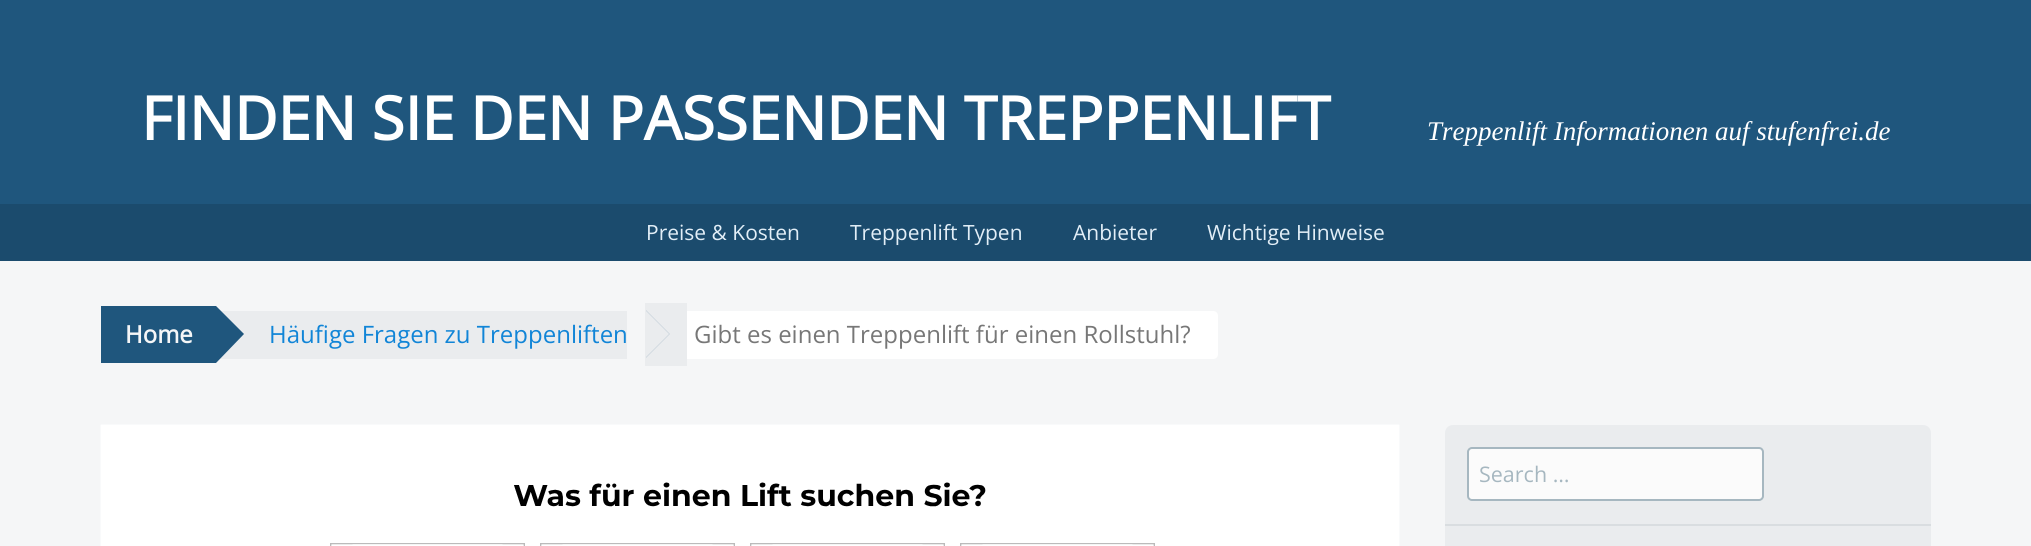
#include <cairo/cairo.h>
#include <math.h>
#include <stddef.h>

typedef struct { double x, y; const char *s; } line_t;
typedef struct { double x, y, w, h; unsigned color; } box_t;
static cairo_t *cr;

static void rgb(unsigned color)
{
	cairo_set_source_rgb(cr, (color >> 16) / 255.0, (color >> 8 & 255) / 255.0, (color & 255) / 255.0);
}

static void rrect(double x, double y, double w, double h, double r)
{
	cairo_new_sub_path(cr);
	cairo_arc(cr, x + w - r, y + h - r, r, 0, M_PI / 2);
	cairo_arc(cr, x + r, y + h - r, r, M_PI / 2, M_PI);
	cairo_arc(cr, x + r, y + r, r, M_PI, 1.5 * M_PI);
	cairo_arc(cr, x + w - r, y + r, r, 1.5 * M_PI, 2 * M_PI);
	cairo_close_path(cr);
}

static void image(const char *path, double x, double y, double w, double h)
{
	cairo_surface_t *image = cairo_image_surface_create_from_png(path);
	cairo_save(cr);
	cairo_set_source_surface(cr, image, x, y);
	cairo_rectangle(cr, x, y, w, h);
	cairo_fill(cr);
	cairo_restore(cr);
	cairo_surface_destroy(image);
}

int main(void) {
	cairo_surface_t *surface = cairo_image_surface_create(CAIRO_FORMAT_RGB24, 2031, 546);
	cr = cairo_create(surface);
	cairo_font_options_t *options = cairo_font_options_create();
	cairo_font_options_set_hint_metrics(options, CAIRO_HINT_METRICS_OFF);
	cairo_font_options_set_hint_style(options, CAIRO_HINT_STYLE_NONE);
	cairo_set_font_options(cr, options);
	cairo_set_miter_limit(cr, 4);
	rgb(0xf5f6f7);
	cairo_paint(cr);
	{
		static const box_t items[] = {
			{0, 0, 2031, 204, 0x1f567d},
			{0, 204, 2031, 57, 0x1b4b6d},
			{101, 306, 115, 57, 0x1f567d},
			{219, 311, 408, 48, 0xeaecee},
		};
		for (size_t i = 0; i < sizeof items / sizeof *items; i++) {
			rgb(items[i].color);
			cairo_rectangle(cr, items[i].x, items[i].y, items[i].w, items[i].h);
			cairo_fill(cr);
		}
	}
	rgb(0x1f567d);
	cairo_new_path(cr);
	cairo_move_to(cr, 216, 363);
	cairo_line_to(cr, 216, 306);
	cairo_line_to(cr, 244, 334);
	cairo_close_path(cr);
	cairo_fill(cr);
	rgb(0xeaecee);
	cairo_rectangle(cr, 645, 303, 42, 63);
	cairo_fill(cr);
	rgb(0xcad4dc);
	cairo_new_path(cr);
	cairo_move_to(cr, 646, 358);
	cairo_line_to(cr, 646, 310);
	cairo_line_to(cr, 670, 334);
	cairo_close_path(cr);
	cairo_fill(cr);
	rgb(0xeaecee);
	cairo_new_path(cr);
	cairo_move_to(cr, 645, 358);
	cairo_line_to(cr, 645, 310);
	cairo_line_to(cr, 669, 334);
	cairo_close_path(cr);
	cairo_fill(cr);
	rgb(0xffffff);
	cairo_rectangle(cr, 687, 311, 6, 48);
	cairo_fill(cr);
	cairo_new_path(cr);
	cairo_move_to(cr, 693, 311);
	cairo_line_to(cr, 1213, 311);
	cairo_curve_to(cr, 1216, 311, 1218, 313, 1218, 316);
	cairo_line_to(cr, 1218, 354);
	cairo_curve_to(cr, 1218, 357, 1216, 359, 1213, 359);
	cairo_line_to(cr, 693, 359);
	cairo_close_path(cr);
	cairo_fill(cr);
	image("img/1.png", 100, 424, 1300, 122);
	rgb(0xeaecee);
	cairo_new_path(cr);
	cairo_move_to(cr, 1453, 425);
	cairo_line_to(cr, 1923, 425);
	cairo_curve_to(cr, 1927.5, 425, 1931, 428.5, 1931, 433);
	cairo_line_to(cr, 1931, 524);
	cairo_line_to(cr, 1445, 524);
	cairo_line_to(cr, 1445, 433);
	cairo_curve_to(cr, 1445, 428.5, 1448.5, 425, 1453, 425);
	cairo_close_path(cr);
	cairo_fill(cr);
	rgb(0xfbfbfb);
	rrect(1468, 448, 295, 52, 4);
	cairo_fill_preserve(cr);
	rgb(0xa6b7c0);
	cairo_stroke(cr);
	rgb(0xeaecee);
	cairo_rectangle(cr, 1445, 526, 486, 20);
	cairo_fill(cr);
	rgb(0xd9dde0);
	cairo_rectangle(cr, 1445, 524, 486, 2);
	cairo_fill(cr);
	cairo_select_font_face(cr, "Open Sans", CAIRO_FONT_SLANT_NORMAL, CAIRO_FONT_WEIGHT_BOLD);
	cairo_set_font_size(cr, 60);
	rgb(0xffffff);
	cairo_move_to(cr, 141, 140);
	cairo_show_text(cr, "FINDEN SIE DEN PASSENDEN TREPPENLIFT");
	cairo_select_font_face(cr, "Liberation Serif", CAIRO_FONT_SLANT_ITALIC, CAIRO_FONT_WEIGHT_NORMAL);
	cairo_set_font_size(cr, 27);
	cairo_move_to(cr, 1427, 140);
	cairo_show_text(cr, "Treppenlift Informationen auf stufenfrei.de");
	cairo_select_font_face(cr, "Open Sans", CAIRO_FONT_SLANT_NORMAL, CAIRO_FONT_WEIGHT_NORMAL);
	cairo_set_font_size(cr, 21);
	rgb(0xe2eef7);
	{
		static const line_t items[] = {
			{646, 240, "Preise & Kosten"},
			{850, 240, "Treppenlift Typen"},
			{1073, 240, "Anbieter"},
			{1207, 240, "Wichtige Hinweise"},
		};
		for (size_t i = 0; i < sizeof items / sizeof *items; i++) {
			cairo_move_to(cr, items[i].x, items[i].y);
			cairo_show_text(cr, items[i].s);
		}
	}
	cairo_select_font_face(cr, "Open Sans", CAIRO_FONT_SLANT_NORMAL, CAIRO_FONT_WEIGHT_BOLD);
	cairo_set_font_size(cr, 24);
	rgb(0xf5f6f7);
	cairo_move_to(cr, 125, 343);
	cairo_show_text(cr, "Home");
	cairo_select_font_face(cr, "Open Sans", CAIRO_FONT_SLANT_NORMAL, CAIRO_FONT_WEIGHT_NORMAL);
	rgb(0x1185d7);
	cairo_move_to(cr, 269, 343);
	cairo_show_text(cr, "Häufige Fragen zu Treppenliften");
	rgb(0x777777);
	cairo_move_to(cr, 694, 343);
	cairo_show_text(cr, "Gibt es einen Treppenlift für einen Rollstuhl?");
	cairo_set_font_size(cr, 21.5);
	rgb(0xa6b7c0);
	cairo_move_to(cr, 1479, 482);
	cairo_show_text(cr, "Search …");
	cairo_surface_write_to_png(surface, "page.png");
	cairo_font_options_destroy(options);
	cairo_destroy(cr);
	cairo_surface_destroy(surface);
	return 0;
}
